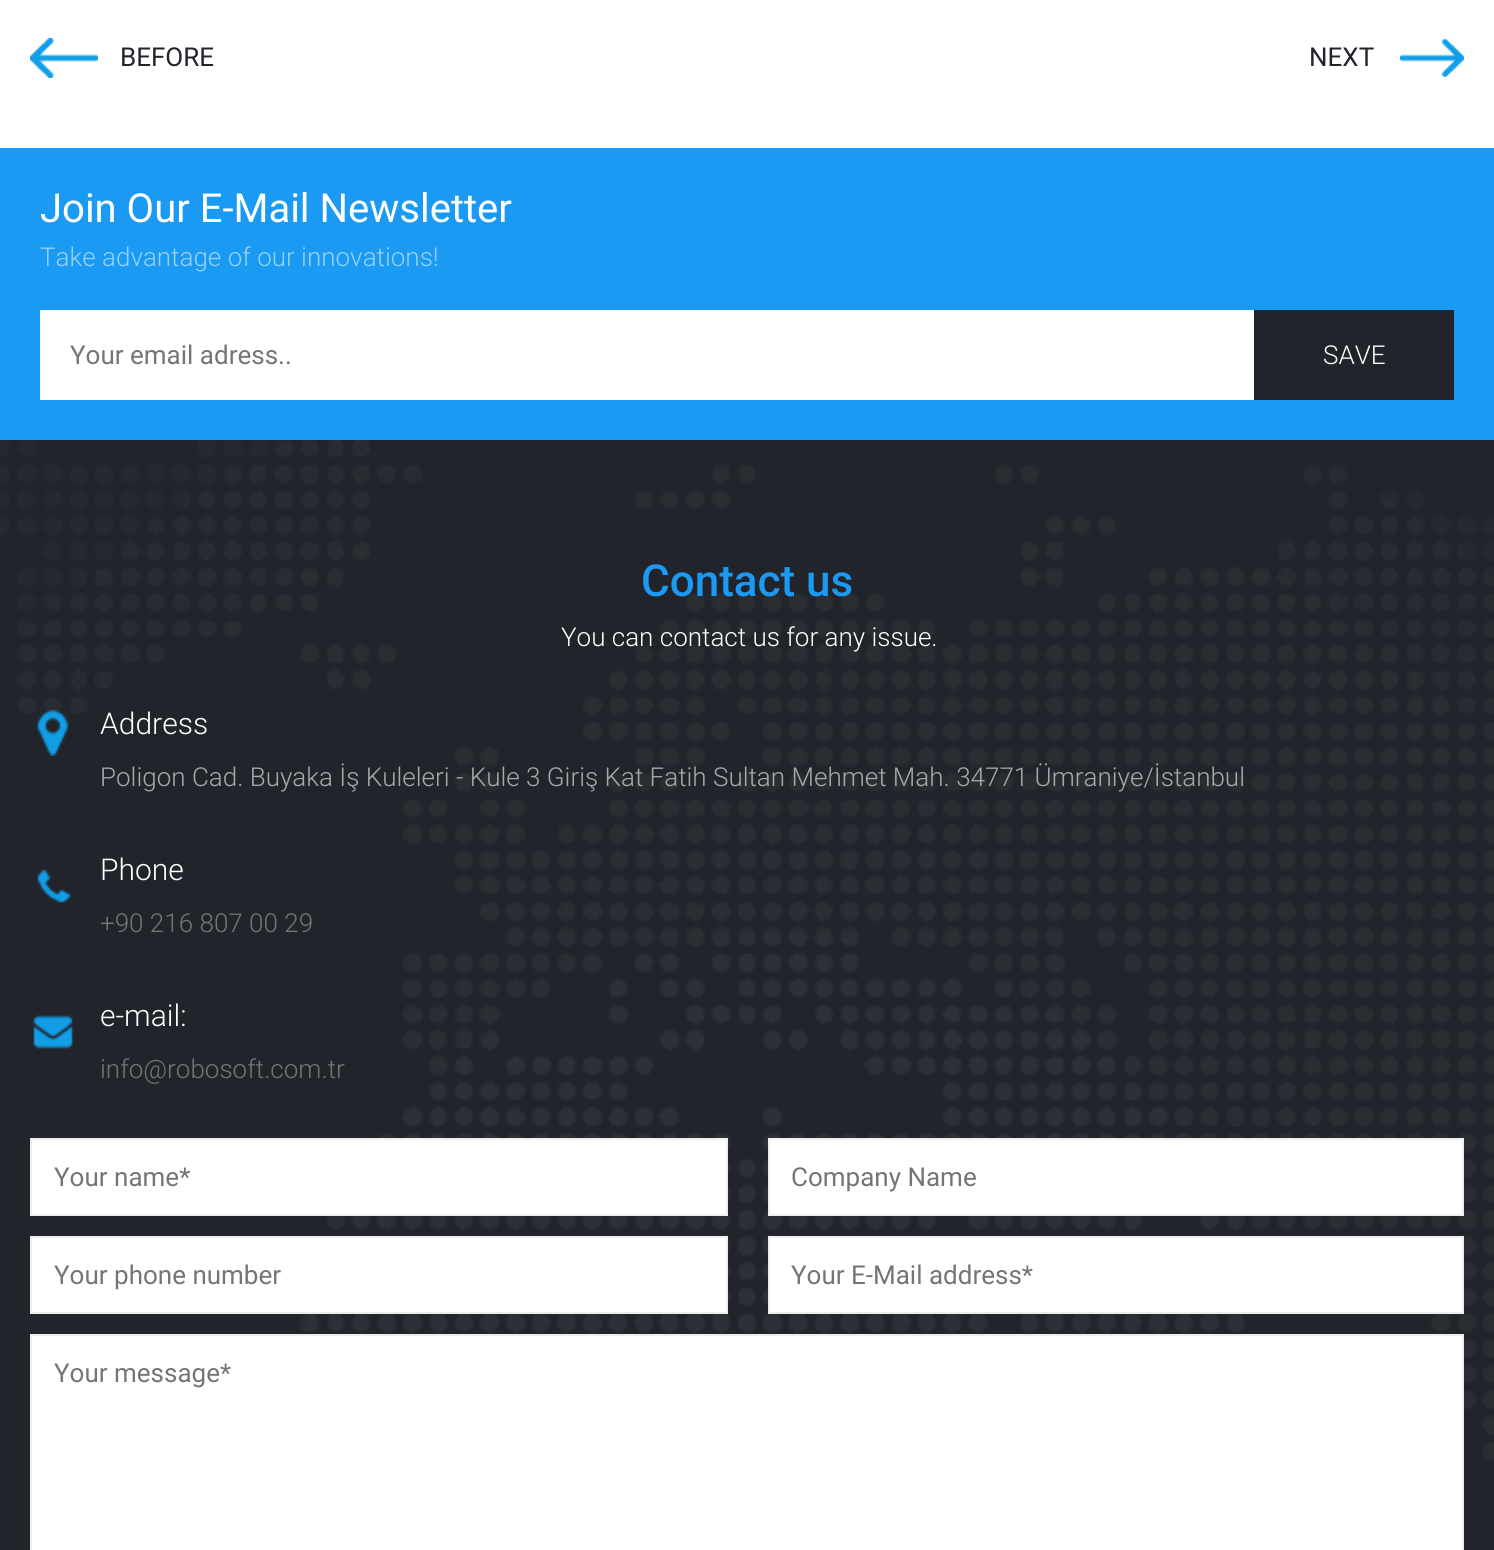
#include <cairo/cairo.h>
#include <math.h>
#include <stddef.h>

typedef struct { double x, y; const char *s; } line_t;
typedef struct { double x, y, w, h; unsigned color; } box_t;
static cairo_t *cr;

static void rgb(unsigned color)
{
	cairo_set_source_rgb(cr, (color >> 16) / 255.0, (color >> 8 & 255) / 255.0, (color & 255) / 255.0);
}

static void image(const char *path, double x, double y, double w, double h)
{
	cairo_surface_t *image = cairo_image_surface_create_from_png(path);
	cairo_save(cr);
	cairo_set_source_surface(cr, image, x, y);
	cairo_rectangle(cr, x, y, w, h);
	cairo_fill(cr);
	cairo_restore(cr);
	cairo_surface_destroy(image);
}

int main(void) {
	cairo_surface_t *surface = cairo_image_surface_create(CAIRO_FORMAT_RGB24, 1494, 1550);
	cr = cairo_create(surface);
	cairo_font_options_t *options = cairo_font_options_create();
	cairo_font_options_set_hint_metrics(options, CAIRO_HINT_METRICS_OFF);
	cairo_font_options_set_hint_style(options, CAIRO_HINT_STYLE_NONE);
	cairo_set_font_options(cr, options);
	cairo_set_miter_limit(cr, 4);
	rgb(0xffffff);
	cairo_paint(cr);
	image("img/1.png", 30, 38, 68, 40);
	image("img/2.png", 1400, 38, 64, 40);
	{
		static const box_t items[] = {
			{0, 148, 1494, 292, 0x1a9af2},
			{40, 310, 1214, 90, 0xffffff},
			{1254, 310, 200, 90, 0x21252b},
			{0, 440, 1494, 1110, 0x21252b},
		};
		for (size_t i = 0; i < sizeof items / sizeof *items; i++) {
			rgb(items[i].color);
			cairo_rectangle(cr, items[i].x, items[i].y, items[i].w, items[i].h);
			cairo_fill(cr);
		}
	}
	image("img/3.png", 0, 440, 1494, 1021);
	image("img/4.png", 37, 710, 32, 46);
	image("img/5.png", 37, 869, 34, 34);
	image("img/6.png", 33, 1015, 40, 34);
	rgb(0xffffff);
	cairo_rectangle(cr, 31, 1139, 696, 76);
	cairo_fill_preserve(cr);
	rgb(0xeeeeee);
	cairo_stroke(cr);
	rgb(0xffffff);
	cairo_rectangle(cr, 769, 1139, 694, 76);
	cairo_fill_preserve(cr);
	rgb(0xeeeeee);
	cairo_stroke(cr);
	rgb(0xffffff);
	cairo_rectangle(cr, 31, 1237, 696, 76);
	cairo_fill_preserve(cr);
	rgb(0xeeeeee);
	cairo_stroke(cr);
	rgb(0xffffff);
	cairo_rectangle(cr, 769, 1237, 694, 76);
	cairo_fill_preserve(cr);
	rgb(0xeeeeee);
	cairo_stroke(cr);
	rgb(0xffffff);
	cairo_rectangle(cr, 31, 1335, 1432, 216);
	cairo_fill_preserve(cr);
	rgb(0xeeeeee);
	cairo_stroke(cr);
	cairo_select_font_face(cr, "Roboto", CAIRO_FONT_SLANT_NORMAL, CAIRO_FONT_WEIGHT_NORMAL);
	cairo_set_font_size(cr, 26);
	rgb(0x21252b);
	cairo_move_to(cr, 120, 66);
	cairo_show_text(cr, "BEFORE");
	cairo_move_to(cr, 1309, 66);
	cairo_show_text(cr, "NEXT");
	cairo_set_font_size(cr, 40);
	rgb(0xffffff);
	cairo_move_to(cr, 40, 222);
	cairo_show_text(cr, "Join Our E-Mail Newsletter");
	cairo_select_font_face(cr, "Roboto Light", CAIRO_FONT_SLANT_NORMAL, CAIRO_FONT_WEIGHT_NORMAL);
	cairo_set_font_size(cr, 26);
	rgb(0x96d1f9);
	cairo_move_to(cr, 40, 266);
	cairo_show_text(cr, "Take advantage of our innovations!");
	cairo_select_font_face(cr, "Roboto", CAIRO_FONT_SLANT_NORMAL, CAIRO_FONT_WEIGHT_NORMAL);
	rgb(0x757575);
	cairo_move_to(cr, 70, 364);
	cairo_show_text(cr, "Your email adress..");
	cairo_select_font_face(cr, "Roboto Light", CAIRO_FONT_SLANT_NORMAL, CAIRO_FONT_WEIGHT_NORMAL);
	rgb(0xffffff);
	cairo_move_to(cr, 1323, 364);
	cairo_show_text(cr, "SAVE");
	cairo_select_font_face(cr, "Roboto Medium", CAIRO_FONT_SLANT_NORMAL, CAIRO_FONT_WEIGHT_NORMAL);
	cairo_set_font_size(cr, 44);
	rgb(0x1a9af2);
	cairo_move_to(cr, 641, 596);
	cairo_show_text(cr, "Contact us");
	cairo_select_font_face(cr, "Roboto Light", CAIRO_FONT_SLANT_NORMAL, CAIRO_FONT_WEIGHT_NORMAL);
	cairo_set_font_size(cr, 26);
	rgb(0xffffff);
	cairo_move_to(cr, 561, 646);
	cairo_show_text(cr, "You can contact us for any issue.");
	cairo_set_font_size(cr, 30);
	cairo_move_to(cr, 100, 734);
	cairo_show_text(cr, "Address");
	cairo_set_font_size(cr, 26);
	rgb(0xa7a9ab);
	cairo_move_to(cr, 100, 786);
	cairo_show_text(cr, "Poligon Cad. Buyaka İş Kuleleri - Kule 3 Giriş Kat Fatih Sultan Mehmet Mah. 34771 Ümraniye/İstanbul");
	cairo_set_font_size(cr, 30);
	rgb(0xffffff);
	cairo_move_to(cr, 100, 880);
	cairo_show_text(cr, "Phone");
	cairo_set_font_size(cr, 26);
	rgb(0x757575);
	cairo_move_to(cr, 100, 932);
	cairo_show_text(cr, "+90 216 807 00 29");
	cairo_set_font_size(cr, 30);
	rgb(0xffffff);
	cairo_move_to(cr, 100, 1026);
	cairo_show_text(cr, "e-mail:");
	cairo_set_font_size(cr, 26);
	rgb(0x757575);
	cairo_move_to(cr, 100, 1078);
	cairo_show_text(cr, "info@robosoft.com.tr");
	cairo_select_font_face(cr, "Roboto", CAIRO_FONT_SLANT_NORMAL, CAIRO_FONT_WEIGHT_NORMAL);
	{
		static const line_t items[] = {
			{54, 1186, "Your name*"},
			{791, 1186, "Company Name"},
			{54, 1284, "Your phone number"},
			{791, 1284, "Your E-Mail address*"},
			{54, 1382, "Your message*"},
		};
		for (size_t i = 0; i < sizeof items / sizeof *items; i++) {
			cairo_move_to(cr, items[i].x, items[i].y);
			cairo_show_text(cr, items[i].s);
		}
	}
	cairo_surface_write_to_png(surface, "page.png");
	cairo_font_options_destroy(options);
	cairo_destroy(cr);
	cairo_surface_destroy(surface);
	return 0;
}
